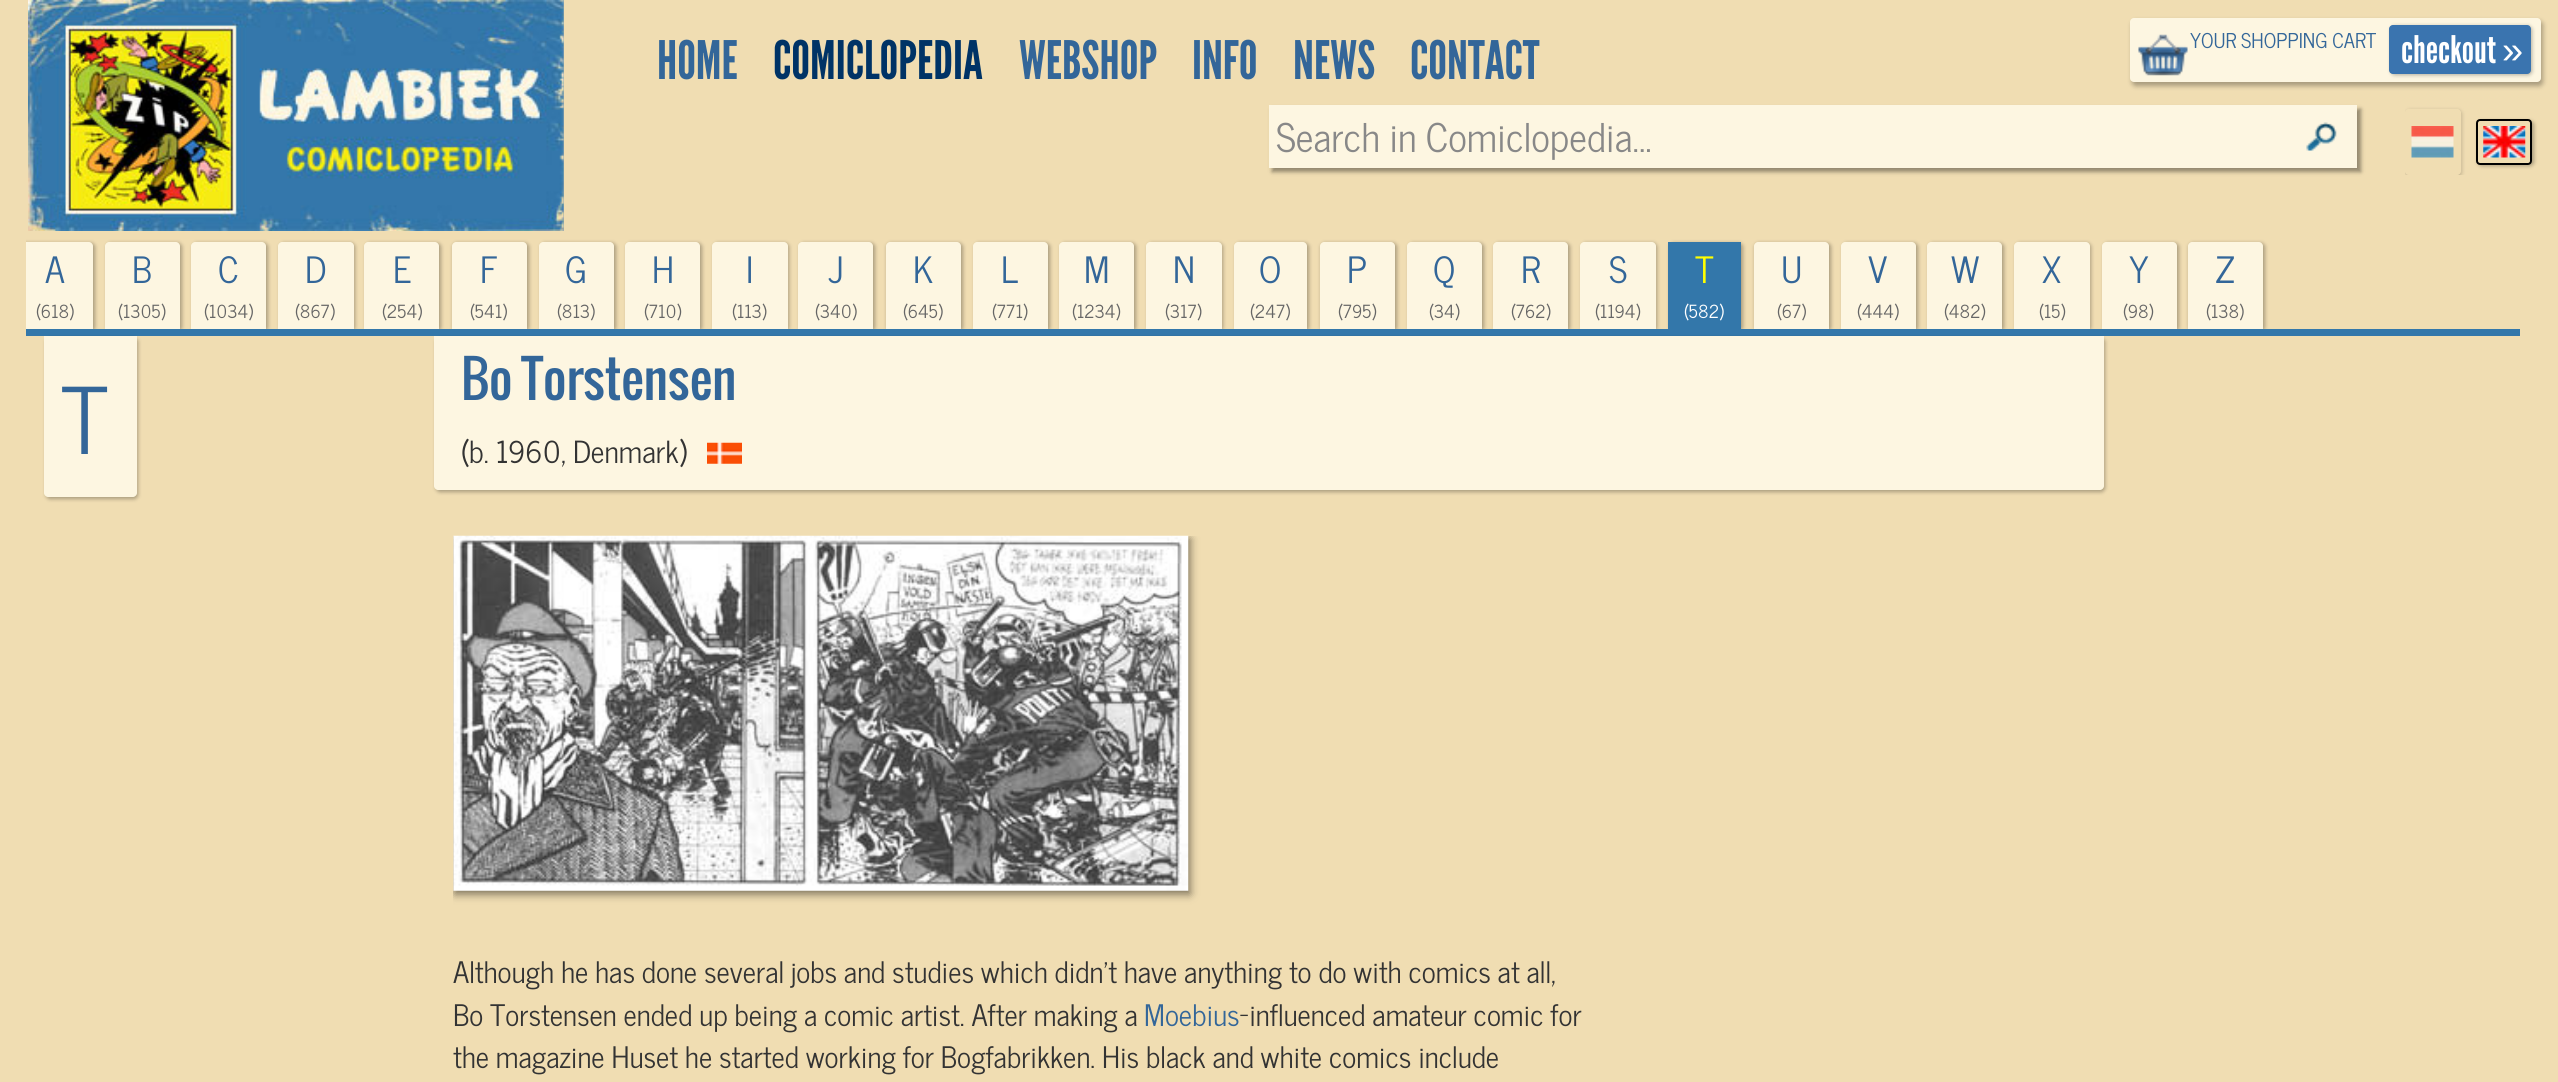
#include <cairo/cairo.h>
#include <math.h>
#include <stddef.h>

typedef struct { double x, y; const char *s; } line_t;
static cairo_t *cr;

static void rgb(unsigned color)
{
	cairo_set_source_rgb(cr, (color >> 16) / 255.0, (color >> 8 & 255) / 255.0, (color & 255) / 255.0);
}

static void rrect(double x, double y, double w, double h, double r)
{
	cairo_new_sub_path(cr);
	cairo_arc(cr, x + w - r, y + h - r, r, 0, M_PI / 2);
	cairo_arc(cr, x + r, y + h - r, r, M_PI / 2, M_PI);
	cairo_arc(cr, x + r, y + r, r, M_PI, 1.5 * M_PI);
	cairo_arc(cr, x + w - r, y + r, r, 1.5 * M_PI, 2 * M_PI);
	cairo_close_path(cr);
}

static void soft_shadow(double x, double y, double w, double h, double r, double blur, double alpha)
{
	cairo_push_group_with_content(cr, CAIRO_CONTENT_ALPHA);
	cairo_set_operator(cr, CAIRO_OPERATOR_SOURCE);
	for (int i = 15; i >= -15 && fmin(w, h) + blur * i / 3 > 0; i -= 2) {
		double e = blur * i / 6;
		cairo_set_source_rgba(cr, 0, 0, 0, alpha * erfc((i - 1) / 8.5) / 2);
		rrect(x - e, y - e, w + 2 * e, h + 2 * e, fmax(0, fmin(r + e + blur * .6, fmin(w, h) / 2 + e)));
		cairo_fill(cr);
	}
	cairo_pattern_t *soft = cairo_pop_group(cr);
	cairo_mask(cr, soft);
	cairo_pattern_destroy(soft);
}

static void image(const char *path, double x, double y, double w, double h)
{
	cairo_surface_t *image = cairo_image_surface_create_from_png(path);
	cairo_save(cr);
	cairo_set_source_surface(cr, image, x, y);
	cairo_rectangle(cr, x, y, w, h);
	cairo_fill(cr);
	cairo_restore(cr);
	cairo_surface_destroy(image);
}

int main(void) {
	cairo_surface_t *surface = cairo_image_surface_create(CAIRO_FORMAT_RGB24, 2558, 1082);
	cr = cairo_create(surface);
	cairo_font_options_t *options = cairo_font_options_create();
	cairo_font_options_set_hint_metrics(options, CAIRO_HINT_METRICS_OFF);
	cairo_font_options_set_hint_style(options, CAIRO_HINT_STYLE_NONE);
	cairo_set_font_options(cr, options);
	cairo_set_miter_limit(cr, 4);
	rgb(0xf0ddb2);
	cairo_paint(cr);
	image("img/1.png", 563, 0, 1, 231);
	image("img/2.png", 28, 0, 536, 231);
	rgb(0x0a0a0a);
	soft_shadow(1272, 109, 1089, 63, 0, 2, 0.4);
	rgb(0xfdf6e1);
	cairo_rectangle(cr, 1269, 105, 1088, 63);
	cairo_fill(cr);
	image("img/3.png", 2306, 122, 31, 29);
	rgb(0x000000);
	soft_shadow(2132, 21, 411, 65, 4, 2.5, 0.3);
	rgb(0xfdf6e1);
	rrect(2130, 18, 411, 64, 4);
	cairo_fill(cr);
	image("img/4.png", 2138, 34, 50, 42);
	rgb(0x000000);
	soft_shadow(2391, 26, 141, 49, 4, 2, 0.3);
	rgb(0x3a74af);
	rrect(2389, 25, 142, 49, 4);
	cairo_fill(cr);
	cairo_save(cr);
	cairo_rectangle(cr, 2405, 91, 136, 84);
	cairo_clip(cr);
	cairo_set_fill_rule(cr, CAIRO_FILL_RULE_EVEN_ODD);
	cairo_new_path(cr);
	cairo_move_to(cr, 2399, 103);
	cairo_line_to(cr, 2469, 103);
	cairo_line_to(cr, 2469, 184);
	cairo_line_to(cr, 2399, 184);
	cairo_close_path(cr);
	cairo_move_to(cr, 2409, 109);
	cairo_line_to(cr, 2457, 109);
	cairo_curve_to(cr, 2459, 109, 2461, 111, 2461, 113);
	cairo_line_to(cr, 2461, 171);
	cairo_curve_to(cr, 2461, 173, 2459, 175, 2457, 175);
	cairo_line_to(cr, 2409, 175);
	cairo_curve_to(cr, 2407, 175, 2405, 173, 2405, 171);
	cairo_line_to(cr, 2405, 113);
	cairo_curve_to(cr, 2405, 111, 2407, 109, 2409, 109);
	cairo_close_path(cr);
	cairo_clip(cr);
	rgb(0x605847);
	soft_shadow(2406, 110, 56, 67, 4, 2, 0.3);
	cairo_restore(cr);
	image("img/5.png", 2411, 126, 43, 32);
	cairo_save(cr);
	cairo_set_fill_rule(cr, CAIRO_FILL_RULE_EVEN_ODD);
	cairo_new_path(cr);
	cairo_move_to(cr, 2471, 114);
	cairo_line_to(cr, 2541, 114);
	cairo_line_to(cr, 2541, 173);
	cairo_line_to(cr, 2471, 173);
	cairo_close_path(cr);
	cairo_move_to(cr, 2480, 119);
	cairo_line_to(cr, 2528, 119);
	cairo_curve_to(cr, 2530, 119, 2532, 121, 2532, 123);
	cairo_line_to(cr, 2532, 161);
	cairo_curve_to(cr, 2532, 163, 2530, 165, 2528, 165);
	cairo_line_to(cr, 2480, 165);
	cairo_curve_to(cr, 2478, 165, 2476, 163, 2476, 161);
	cairo_line_to(cr, 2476, 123);
	cairo_curve_to(cr, 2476, 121, 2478, 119, 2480, 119);
	cairo_close_path(cr);
	cairo_clip(cr);
	rgb(0x000000);
	soft_shadow(2478, 121, 56, 45, 4, 2, 0.3);
	cairo_restore(cr);
	image("img/6.png", 2483, 126, 43, 32);
	rrect(2477, 120, 54, 44, 3);
	rgb(0x000000);
	cairo_stroke(cr);
	rgb(0x3377aa);
	cairo_rectangle(cr, 26, 329, 2494, 7);
	cairo_fill(cr);
	cairo_save(cr);
	cairo_rectangle(cr, 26, 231, 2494, 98);
	cairo_clip(cr);
	rgb(0x000000);
	soft_shadow(19, 243, 76, 88, 4, 2, 0.3);
	cairo_restore(cr);
	rgb(0xfdf6e1);
	cairo_new_path(cr);
	cairo_move_to(cr, 26, 242);
	cairo_line_to(cr, 89, 242);
	cairo_curve_to(cr, 91, 242, 93, 244, 93, 246);
	cairo_line_to(cr, 93, 329);
	cairo_line_to(cr, 26, 329);
	cairo_close_path(cr);
	cairo_fill(cr);
	cairo_save(cr);
	cairo_rectangle(cr, 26, 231, 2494, 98);
	cairo_clip(cr);
	rgb(0x000000);
	soft_shadow(107, 243, 75, 88, 4, 2, 0.3);
	cairo_restore(cr);
	cairo_new_path(cr);
	cairo_move_to(cr, 109, 242);
	cairo_line_to(cr, 176, 242);
	cairo_curve_to(cr, 178, 242, 180, 244, 180, 246);
	cairo_line_to(cr, 180, 329);
	cairo_line_to(cr, 105, 329);
	cairo_line_to(cr, 105, 246);
	cairo_curve_to(cr, 105, 244, 107, 242, 109, 242);
	cairo_close_path(cr);
	cairo_fill(cr);
	cairo_save(cr);
	cairo_rectangle(cr, 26, 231, 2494, 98);
	cairo_clip(cr);
	rgb(0x000000);
	soft_shadow(193, 243, 75, 88, 4, 2, 0.3);
	cairo_restore(cr);
	cairo_new_path(cr);
	cairo_move_to(cr, 195, 242);
	cairo_line_to(cr, 262, 242);
	cairo_curve_to(cr, 264, 242, 266, 244, 266, 246);
	cairo_line_to(cr, 266, 329);
	cairo_line_to(cr, 191, 329);
	cairo_line_to(cr, 191, 246);
	cairo_curve_to(cr, 191, 244, 193, 242, 195, 242);
	cairo_close_path(cr);
	cairo_fill(cr);
	cairo_save(cr);
	cairo_rectangle(cr, 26, 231, 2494, 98);
	cairo_clip(cr);
	rgb(0x000000);
	soft_shadow(280, 243, 75, 88, 4, 2, 0.3);
	cairo_restore(cr);
	cairo_new_path(cr);
	cairo_move_to(cr, 282, 242);
	cairo_line_to(cr, 350, 242);
	cairo_curve_to(cr, 352, 242, 354, 244, 354, 246);
	cairo_line_to(cr, 354, 329);
	cairo_line_to(cr, 278, 329);
	cairo_line_to(cr, 278, 246);
	cairo_curve_to(cr, 278, 244, 280, 242, 282, 242);
	cairo_close_path(cr);
	cairo_fill(cr);
	cairo_save(cr);
	cairo_rectangle(cr, 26, 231, 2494, 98);
	cairo_clip(cr);
	rgb(0x000000);
	soft_shadow(366, 243, 75, 88, 4, 2, 0.3);
	cairo_restore(cr);
	cairo_new_path(cr);
	cairo_move_to(cr, 368, 242);
	cairo_line_to(cr, 435, 242);
	cairo_curve_to(cr, 437, 242, 439, 244, 439, 246);
	cairo_line_to(cr, 439, 329);
	cairo_line_to(cr, 364, 329);
	cairo_line_to(cr, 364, 246);
	cairo_curve_to(cr, 364, 244, 366, 242, 368, 242);
	cairo_close_path(cr);
	cairo_fill(cr);
	cairo_save(cr);
	cairo_rectangle(cr, 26, 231, 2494, 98);
	cairo_clip(cr);
	rgb(0x000000);
	soft_shadow(453, 243, 76, 88, 4, 2, 0.3);
	cairo_restore(cr);
	cairo_new_path(cr);
	cairo_move_to(cr, 456, 242);
	cairo_line_to(cr, 523, 242);
	cairo_curve_to(cr, 525, 242, 527, 244, 527, 246);
	cairo_line_to(cr, 527, 329);
	cairo_line_to(cr, 452, 329);
	cairo_line_to(cr, 452, 246);
	cairo_curve_to(cr, 452, 244, 454, 242, 456, 242);
	cairo_close_path(cr);
	cairo_fill(cr);
	cairo_save(cr);
	cairo_rectangle(cr, 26, 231, 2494, 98);
	cairo_clip(cr);
	rgb(0x000000);
	soft_shadow(541, 243, 75, 88, 4, 2, 0.3);
	cairo_restore(cr);
	cairo_new_path(cr);
	cairo_move_to(cr, 543, 242);
	cairo_line_to(cr, 610, 242);
	cairo_curve_to(cr, 612, 242, 614, 244, 614, 246);
	cairo_line_to(cr, 614, 329);
	cairo_line_to(cr, 539, 329);
	cairo_line_to(cr, 539, 246);
	cairo_curve_to(cr, 539, 244, 541, 242, 543, 242);
	cairo_close_path(cr);
	cairo_fill(cr);
	cairo_save(cr);
	cairo_rectangle(cr, 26, 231, 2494, 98);
	cairo_clip(cr);
	rgb(0x000000);
	soft_shadow(627, 243, 75, 88, 4, 2, 0.3);
	cairo_restore(cr);
	cairo_new_path(cr);
	cairo_move_to(cr, 629, 242);
	cairo_line_to(cr, 696, 242);
	cairo_curve_to(cr, 698, 242, 700, 244, 700, 246);
	cairo_line_to(cr, 700, 329);
	cairo_line_to(cr, 625, 329);
	cairo_line_to(cr, 625, 246);
	cairo_curve_to(cr, 625, 244, 627, 242, 629, 242);
	cairo_close_path(cr);
	cairo_fill(cr);
	cairo_save(cr);
	cairo_rectangle(cr, 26, 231, 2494, 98);
	cairo_clip(cr);
	rgb(0x000000);
	soft_shadow(714, 243, 75, 88, 4, 2, 0.3);
	cairo_restore(cr);
	cairo_new_path(cr);
	cairo_move_to(cr, 716, 242);
	cairo_line_to(cr, 784, 242);
	cairo_curve_to(cr, 786, 242, 788, 244, 788, 246);
	cairo_line_to(cr, 788, 329);
	cairo_line_to(cr, 712, 329);
	cairo_line_to(cr, 712, 246);
	cairo_curve_to(cr, 712, 244, 714, 242, 716, 242);
	cairo_close_path(cr);
	cairo_fill(cr);
	cairo_save(cr);
	cairo_rectangle(cr, 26, 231, 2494, 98);
	cairo_clip(cr);
	rgb(0x000000);
	soft_shadow(800, 243, 75, 88, 4, 2, 0.3);
	cairo_restore(cr);
	cairo_new_path(cr);
	cairo_move_to(cr, 802, 242);
	cairo_line_to(cr, 869, 242);
	cairo_curve_to(cr, 871, 242, 873, 244, 873, 246);
	cairo_line_to(cr, 873, 329);
	cairo_line_to(cr, 798, 329);
	cairo_line_to(cr, 798, 246);
	cairo_curve_to(cr, 798, 244, 800, 242, 802, 242);
	cairo_close_path(cr);
	cairo_fill(cr);
	cairo_save(cr);
	cairo_rectangle(cr, 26, 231, 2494, 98);
	cairo_clip(cr);
	rgb(0x000000);
	soft_shadow(887, 243, 76, 88, 4, 2, 0.3);
	cairo_restore(cr);
	cairo_new_path(cr);
	cairo_move_to(cr, 890, 242);
	cairo_line_to(cr, 957, 242);
	cairo_curve_to(cr, 959, 242, 961, 244, 961, 246);
	cairo_line_to(cr, 961, 329);
	cairo_line_to(cr, 886, 329);
	cairo_line_to(cr, 886, 246);
	cairo_curve_to(cr, 886, 244, 888, 242, 890, 242);
	cairo_close_path(cr);
	cairo_fill(cr);
	cairo_save(cr);
	cairo_rectangle(cr, 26, 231, 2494, 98);
	cairo_clip(cr);
	rgb(0x000000);
	soft_shadow(975, 243, 75, 88, 4, 2, 0.3);
	cairo_restore(cr);
	cairo_new_path(cr);
	cairo_move_to(cr, 977, 242);
	cairo_line_to(cr, 1044, 242);
	cairo_curve_to(cr, 1046, 242, 1048, 244, 1048, 246);
	cairo_line_to(cr, 1048, 329);
	cairo_line_to(cr, 973, 329);
	cairo_line_to(cr, 973, 246);
	cairo_curve_to(cr, 973, 244, 975, 242, 977, 242);
	cairo_close_path(cr);
	cairo_fill(cr);
	cairo_save(cr);
	cairo_rectangle(cr, 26, 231, 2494, 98);
	cairo_clip(cr);
	rgb(0x000000);
	soft_shadow(1061, 243, 75, 88, 4, 2, 0.3);
	cairo_restore(cr);
	cairo_new_path(cr);
	cairo_move_to(cr, 1063, 242);
	cairo_line_to(cr, 1130, 242);
	cairo_curve_to(cr, 1132, 242, 1134, 244, 1134, 246);
	cairo_line_to(cr, 1134, 329);
	cairo_line_to(cr, 1059, 329);
	cairo_line_to(cr, 1059, 246);
	cairo_curve_to(cr, 1059, 244, 1061, 242, 1063, 242);
	cairo_close_path(cr);
	cairo_fill(cr);
	cairo_save(cr);
	cairo_rectangle(cr, 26, 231, 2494, 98);
	cairo_clip(cr);
	rgb(0x000000);
	soft_shadow(1148, 243, 75, 88, 4, 2, 0.3);
	cairo_restore(cr);
	cairo_new_path(cr);
	cairo_move_to(cr, 1150, 242);
	cairo_line_to(cr, 1218, 242);
	cairo_curve_to(cr, 1220, 242, 1222, 244, 1222, 246);
	cairo_line_to(cr, 1222, 329);
	cairo_line_to(cr, 1146, 329);
	cairo_line_to(cr, 1146, 246);
	cairo_curve_to(cr, 1146, 244, 1148, 242, 1150, 242);
	cairo_close_path(cr);
	cairo_fill(cr);
	cairo_save(cr);
	cairo_rectangle(cr, 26, 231, 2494, 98);
	cairo_clip(cr);
	rgb(0x000000);
	soft_shadow(1236, 243, 73, 88, 4, 2, 0.3);
	cairo_restore(cr);
	cairo_new_path(cr);
	cairo_move_to(cr, 1238, 242);
	cairo_line_to(cr, 1303, 242);
	cairo_curve_to(cr, 1305, 242, 1307, 244, 1307, 246);
	cairo_line_to(cr, 1307, 329);
	cairo_line_to(cr, 1234, 329);
	cairo_line_to(cr, 1234, 246);
	cairo_curve_to(cr, 1234, 244, 1236, 242, 1238, 242);
	cairo_close_path(cr);
	cairo_fill(cr);
	cairo_save(cr);
	cairo_rectangle(cr, 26, 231, 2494, 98);
	cairo_clip(cr);
	rgb(0x000000);
	soft_shadow(1321, 243, 76, 88, 4, 2, 0.3);
	cairo_restore(cr);
	cairo_new_path(cr);
	cairo_move_to(cr, 1324, 242);
	cairo_line_to(cr, 1391, 242);
	cairo_curve_to(cr, 1393, 242, 1395, 244, 1395, 246);
	cairo_line_to(cr, 1395, 329);
	cairo_line_to(cr, 1320, 329);
	cairo_line_to(cr, 1320, 246);
	cairo_curve_to(cr, 1320, 244, 1322, 242, 1324, 242);
	cairo_close_path(cr);
	cairo_fill(cr);
	cairo_save(cr);
	cairo_rectangle(cr, 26, 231, 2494, 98);
	cairo_clip(cr);
	rgb(0x000000);
	soft_shadow(1409, 243, 75, 88, 4, 2, 0.3);
	cairo_restore(cr);
	cairo_new_path(cr);
	cairo_move_to(cr, 1411, 242);
	cairo_line_to(cr, 1478, 242);
	cairo_curve_to(cr, 1480, 242, 1482, 244, 1482, 246);
	cairo_line_to(cr, 1482, 329);
	cairo_line_to(cr, 1407, 329);
	cairo_line_to(cr, 1407, 246);
	cairo_curve_to(cr, 1407, 244, 1409, 242, 1411, 242);
	cairo_close_path(cr);
	cairo_fill(cr);
	cairo_save(cr);
	cairo_rectangle(cr, 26, 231, 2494, 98);
	cairo_clip(cr);
	rgb(0x000000);
	soft_shadow(1495, 243, 75, 88, 4, 2, 0.3);
	cairo_restore(cr);
	cairo_new_path(cr);
	cairo_move_to(cr, 1497, 242);
	cairo_line_to(cr, 1564, 242);
	cairo_curve_to(cr, 1566, 242, 1568, 244, 1568, 246);
	cairo_line_to(cr, 1568, 329);
	cairo_line_to(cr, 1493, 329);
	cairo_line_to(cr, 1493, 246);
	cairo_curve_to(cr, 1493, 244, 1495, 242, 1497, 242);
	cairo_close_path(cr);
	cairo_fill(cr);
	cairo_save(cr);
	cairo_rectangle(cr, 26, 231, 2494, 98);
	cairo_clip(cr);
	rgb(0x000000);
	soft_shadow(1582, 243, 75, 88, 4, 2, 0.3);
	cairo_restore(cr);
	cairo_new_path(cr);
	cairo_move_to(cr, 1584, 242);
	cairo_line_to(cr, 1652, 242);
	cairo_curve_to(cr, 1654, 242, 1656, 244, 1656, 246);
	cairo_line_to(cr, 1656, 329);
	cairo_line_to(cr, 1580, 329);
	cairo_line_to(cr, 1580, 246);
	cairo_curve_to(cr, 1580, 244, 1582, 242, 1584, 242);
	cairo_close_path(cr);
	cairo_fill(cr);
	cairo_save(cr);
	cairo_rectangle(cr, 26, 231, 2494, 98);
	cairo_clip(cr);
	rgb(0x000000);
	soft_shadow(1670, 243, 73, 88, 4, 2, 0.3);
	cairo_restore(cr);
	rgb(0x3377aa);
	cairo_rectangle(cr, 1668, 242, 73, 87);
	cairo_fill(cr);
	cairo_save(cr);
	cairo_rectangle(cr, 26, 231, 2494, 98);
	cairo_clip(cr);
	rgb(0x000000);
	soft_shadow(1755, 243, 76, 88, 4, 2, 0.3);
	cairo_restore(cr);
	rgb(0xfdf6e1);
	cairo_new_path(cr);
	cairo_move_to(cr, 1758, 242);
	cairo_line_to(cr, 1825, 242);
	cairo_curve_to(cr, 1827, 242, 1829, 244, 1829, 246);
	cairo_line_to(cr, 1829, 329);
	cairo_line_to(cr, 1754, 329);
	cairo_line_to(cr, 1754, 246);
	cairo_curve_to(cr, 1754, 244, 1756, 242, 1758, 242);
	cairo_close_path(cr);
	cairo_fill(cr);
	cairo_save(cr);
	cairo_rectangle(cr, 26, 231, 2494, 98);
	cairo_clip(cr);
	rgb(0x000000);
	soft_shadow(1843, 243, 75, 88, 4, 2, 0.3);
	cairo_restore(cr);
	cairo_new_path(cr);
	cairo_move_to(cr, 1845, 242);
	cairo_line_to(cr, 1912, 242);
	cairo_curve_to(cr, 1914, 242, 1916, 244, 1916, 246);
	cairo_line_to(cr, 1916, 329);
	cairo_line_to(cr, 1841, 329);
	cairo_line_to(cr, 1841, 246);
	cairo_curve_to(cr, 1841, 244, 1843, 242, 1845, 242);
	cairo_close_path(cr);
	cairo_fill(cr);
	cairo_save(cr);
	cairo_rectangle(cr, 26, 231, 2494, 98);
	cairo_clip(cr);
	rgb(0x000000);
	soft_shadow(1929, 243, 75, 88, 4, 2, 0.3);
	cairo_restore(cr);
	cairo_new_path(cr);
	cairo_move_to(cr, 1931, 242);
	cairo_line_to(cr, 1998, 242);
	cairo_curve_to(cr, 2000, 242, 2002, 244, 2002, 246);
	cairo_line_to(cr, 2002, 329);
	cairo_line_to(cr, 1927, 329);
	cairo_line_to(cr, 1927, 246);
	cairo_curve_to(cr, 1927, 244, 1929, 242, 1931, 242);
	cairo_close_path(cr);
	cairo_fill(cr);
	cairo_save(cr);
	cairo_rectangle(cr, 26, 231, 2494, 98);
	cairo_clip(cr);
	rgb(0x000000);
	soft_shadow(2016, 243, 75, 88, 4, 2, 0.3);
	cairo_restore(cr);
	cairo_new_path(cr);
	cairo_move_to(cr, 2018, 242);
	cairo_line_to(cr, 2086, 242);
	cairo_curve_to(cr, 2088, 242, 2090, 244, 2090, 246);
	cairo_line_to(cr, 2090, 329);
	cairo_line_to(cr, 2014, 329);
	cairo_line_to(cr, 2014, 246);
	cairo_curve_to(cr, 2014, 244, 2016, 242, 2018, 242);
	cairo_close_path(cr);
	cairo_fill(cr);
	cairo_save(cr);
	cairo_rectangle(cr, 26, 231, 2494, 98);
	cairo_clip(cr);
	rgb(0x000000);
	soft_shadow(2104, 243, 75, 88, 4, 2, 0.3);
	cairo_restore(cr);
	cairo_new_path(cr);
	cairo_move_to(cr, 2106, 242);
	cairo_line_to(cr, 2173, 242);
	cairo_curve_to(cr, 2175, 242, 2177, 244, 2177, 246);
	cairo_line_to(cr, 2177, 329);
	cairo_line_to(cr, 2102, 329);
	cairo_line_to(cr, 2102, 246);
	cairo_curve_to(cr, 2102, 244, 2104, 242, 2106, 242);
	cairo_close_path(cr);
	cairo_fill(cr);
	cairo_save(cr);
	cairo_rectangle(cr, 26, 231, 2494, 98);
	cairo_clip(cr);
	rgb(0x000000);
	soft_shadow(2189, 243, 76, 88, 4, 2, 0.3);
	cairo_restore(cr);
	cairo_new_path(cr);
	cairo_move_to(cr, 2192, 242);
	cairo_line_to(cr, 2259, 242);
	cairo_curve_to(cr, 2261, 242, 2263, 244, 2263, 246);
	cairo_line_to(cr, 2263, 329);
	cairo_line_to(cr, 2188, 329);
	cairo_line_to(cr, 2188, 246);
	cairo_curve_to(cr, 2188, 244, 2190, 242, 2192, 242);
	cairo_close_path(cr);
	cairo_fill(cr);
	rgb(0x000000);
	soft_shadow(46, 338, 92, 161, 4, 2, 0.3);
	rgb(0xfdf6e1);
	cairo_new_path(cr);
	cairo_move_to(cr, 44, 336);
	cairo_line_to(cr, 137, 336);
	cairo_line_to(cr, 137, 493);
	cairo_curve_to(cr, 137, 495, 135, 497, 133, 497);
	cairo_line_to(cr, 48, 497);
	cairo_curve_to(cr, 46, 497, 44, 495, 44, 493);
	cairo_close_path(cr);
	cairo_fill(cr);
	rgb(0x000000);
	soft_shadow(436, 338, 1669, 154, 4, 2, 0.3);
	rgb(0xfdf6e1);
	cairo_new_path(cr);
	cairo_move_to(cr, 434, 336);
	cairo_line_to(cr, 2104, 336);
	cairo_line_to(cr, 2104, 486);
	cairo_curve_to(cr, 2104, 488, 2102, 490, 2100, 490);
	cairo_line_to(cr, 438, 490);
	cairo_curve_to(cr, 436, 490, 434, 488, 434, 486);
	cairo_close_path(cr);
	cairo_fill(cr);
	image("img/7.png", 707, 442, 35, 22);
	cairo_save(cr);
	cairo_rectangle(cr, 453, 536, 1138, 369);
	cairo_clip(cr);
	rgb(0x000000);
	soft_shadow(455, 539, 735, 355, 0, 4.5, 0.5);
	cairo_restore(cr);
	image("img/8.png", 453, 535, 736, 356);
	cairo_select_font_face(cr, "League Gothic", CAIRO_FONT_SLANT_NORMAL, CAIRO_FONT_WEIGHT_NORMAL);
	cairo_set_font_size(cr, 53);
	rgb(0x336699);
	cairo_move_to(cr, 657, 79);
	cairo_show_text(cr, "HOME");
	rgb(0x003366);
	cairo_move_to(cr, 773, 79);
	cairo_show_text(cr, "COMICLOPEDIA");
	rgb(0x336699);
	{
		static const line_t items[] = {
			{1019, 79, "WEBSHOP"},
			{1192, 79, "INFO"},
			{1293, 79, "NEWS"},
			{1410, 79, "CONTACT"},
		};
		for (size_t i = 0; i < sizeof items / sizeof *items; i++) {
			cairo_move_to(cr, items[i].x, items[i].y);
			cairo_show_text(cr, items[i].s);
		}
	}
	cairo_select_font_face(cr, "News Cycle Medium", CAIRO_FONT_SLANT_NORMAL, CAIRO_FONT_WEIGHT_NORMAL);
	cairo_set_font_size(cr, 39.25);
	rgb(0x888888);
	cairo_move_to(cr, 1276, 152);
	cairo_show_text(cr, "Search in Comiclopedia...");
	cairo_set_font_size(cr, 20.25);
	rgb(0x336699);
	cairo_move_to(cr, 2190, 48);
	cairo_show_text(cr, "YOUR SHOPPING CART");
	cairo_select_font_face(cr, "League Gothic", CAIRO_FONT_SLANT_NORMAL, CAIRO_FONT_WEIGHT_NORMAL);
	cairo_set_font_size(cr, 38);
	rgb(0xffffff);
	cairo_move_to(cr, 2401, 63);
	cairo_show_text(cr, "checkout");
	cairo_select_font_face(cr, "Liberation Sans", CAIRO_FONT_SLANT_NORMAL, CAIRO_FONT_WEIGHT_NORMAL);
	cairo_move_to(cr, 2502, 63);
	cairo_show_text(cr, "»");
	cairo_select_font_face(cr, "News Cycle Medium", CAIRO_FONT_SLANT_NORMAL, CAIRO_FONT_WEIGHT_NORMAL);
	cairo_set_font_size(cr, 36);
	rgb(0x336699);
	cairo_move_to(cr, 45, 283);
	cairo_show_text(cr, "A");
	cairo_set_font_size(cr, 18);
	rgb(0x666666);
	cairo_move_to(cr, 36, 318);
	cairo_show_text(cr, "(618)");
	cairo_set_font_size(cr, 36);
	rgb(0x336699);
	cairo_move_to(cr, 132, 283);
	cairo_show_text(cr, "B");
	cairo_set_font_size(cr, 18);
	rgb(0x666666);
	cairo_move_to(cr, 118, 318);
	cairo_show_text(cr, "(1305)");
	cairo_set_font_size(cr, 36);
	rgb(0x336699);
	cairo_move_to(cr, 218, 283);
	cairo_show_text(cr, "C");
	cairo_set_font_size(cr, 18);
	rgb(0x666666);
	cairo_move_to(cr, 204, 318);
	cairo_show_text(cr, "(1034)");
	cairo_set_font_size(cr, 36);
	rgb(0x336699);
	cairo_move_to(cr, 305, 283);
	cairo_show_text(cr, "D");
	cairo_set_font_size(cr, 18);
	rgb(0x666666);
	cairo_move_to(cr, 295, 318);
	cairo_show_text(cr, "(867)");
	cairo_set_font_size(cr, 36);
	rgb(0x336699);
	cairo_move_to(cr, 393, 283);
	cairo_show_text(cr, "E");
	cairo_set_font_size(cr, 18);
	rgb(0x666666);
	cairo_move_to(cr, 382, 318);
	cairo_show_text(cr, "(254)");
	cairo_set_font_size(cr, 36);
	rgb(0x336699);
	cairo_move_to(cr, 480, 283);
	cairo_show_text(cr, "F");
	cairo_set_font_size(cr, 18);
	rgb(0x666666);
	cairo_move_to(cr, 470, 318);
	cairo_show_text(cr, "(541)");
	cairo_set_font_size(cr, 36);
	rgb(0x336699);
	cairo_move_to(cr, 565, 283);
	cairo_show_text(cr, "G");
	cairo_set_font_size(cr, 18);
	rgb(0x666666);
	cairo_move_to(cr, 557, 318);
	cairo_show_text(cr, "(813)");
	cairo_set_font_size(cr, 36);
	rgb(0x336699);
	cairo_move_to(cr, 652, 283);
	cairo_show_text(cr, "H");
	cairo_set_font_size(cr, 18);
	rgb(0x666666);
	cairo_move_to(cr, 644, 318);
	cairo_show_text(cr, "(710)");
	cairo_set_font_size(cr, 36);
	rgb(0x336699);
	cairo_move_to(cr, 746, 283);
	cairo_show_text(cr, "I");
	cairo_set_font_size(cr, 18);
	rgb(0x666666);
	cairo_move_to(cr, 732, 318);
	cairo_show_text(cr, "(113)");
	cairo_set_font_size(cr, 36);
	rgb(0x336699);
	cairo_move_to(cr, 828, 283);
	cairo_show_text(cr, "J");
	cairo_set_font_size(cr, 18);
	rgb(0x666666);
	cairo_move_to(cr, 815, 318);
	cairo_show_text(cr, "(340)");
	cairo_set_font_size(cr, 36);
	rgb(0x336699);
	cairo_move_to(cr, 913, 283);
	cairo_show_text(cr, "K");
	cairo_set_font_size(cr, 18);
	rgb(0x666666);
	cairo_move_to(cr, 903, 318);
	cairo_show_text(cr, "(645)");
	cairo_set_font_size(cr, 36);
	rgb(0x336699);
	cairo_move_to(cr, 1001, 283);
	cairo_show_text(cr, "L");
	cairo_set_font_size(cr, 18);
	rgb(0x666666);
	cairo_move_to(cr, 992, 318);
	cairo_show_text(cr, "(771)");
	cairo_set_font_size(cr, 36);
	rgb(0x336699);
	cairo_move_to(cr, 1084, 283);
	cairo_show_text(cr, "M");
	cairo_set_font_size(cr, 18);
	rgb(0x666666);
	cairo_move_to(cr, 1072, 318);
	cairo_show_text(cr, "(1234)");
	cairo_set_font_size(cr, 36);
	rgb(0x336699);
	cairo_move_to(cr, 1173, 283);
	cairo_show_text(cr, "N");
	cairo_set_font_size(cr, 18);
	rgb(0x666666);
	cairo_move_to(cr, 1165, 318);
	cairo_show_text(cr, "(317)");
	cairo_set_font_size(cr, 36);
	rgb(0x336699);
	cairo_move_to(cr, 1259, 283);
	cairo_show_text(cr, "O");
	cairo_set_font_size(cr, 18);
	rgb(0x666666);
	cairo_move_to(cr, 1250, 318);
	cairo_show_text(cr, "(247)");
	cairo_set_font_size(cr, 36);
	rgb(0x336699);
	cairo_move_to(cr, 1347, 283);
	cairo_show_text(cr, "P");
	cairo_set_font_size(cr, 18);
	rgb(0x666666);
	cairo_move_to(cr, 1338, 318);
	cairo_show_text(cr, "(795)");
	cairo_set_font_size(cr, 36);
	rgb(0x336699);
	cairo_move_to(cr, 1433, 283);
	cairo_show_text(cr, "Q");
	cairo_set_font_size(cr, 18);
	rgb(0x666666);
	cairo_move_to(cr, 1429, 318);
	cairo_show_text(cr, "(34)");
	cairo_set_font_size(cr, 36);
	rgb(0x336699);
	cairo_move_to(cr, 1521, 283);
	cairo_show_text(cr, "R");
	cairo_set_font_size(cr, 18);
	rgb(0x666666);
	cairo_move_to(cr, 1511, 318);
	cairo_show_text(cr, "(762)");
	cairo_set_font_size(cr, 36);
	rgb(0x336699);
	cairo_move_to(cr, 1609, 283);
	cairo_show_text(cr, "S");
	cairo_set_font_size(cr, 18);
	rgb(0x666666);
	cairo_move_to(cr, 1595, 318);
	cairo_show_text(cr, "(1194)");
	cairo_set_font_size(cr, 36);
	rgb(0xffff00);
	cairo_move_to(cr, 1695, 283);
	cairo_show_text(cr, "T");
	cairo_set_font_size(cr, 18);
	rgb(0xffffff);
	cairo_move_to(cr, 1684, 318);
	cairo_show_text(cr, "(582)");
	cairo_set_font_size(cr, 36);
	rgb(0x336699);
	cairo_move_to(cr, 1781, 283);
	cairo_show_text(cr, "U");
	cairo_set_font_size(cr, 18);
	rgb(0x666666);
	cairo_move_to(cr, 1777, 318);
	cairo_show_text(cr, "(67)");
	cairo_set_font_size(cr, 36);
	rgb(0x336699);
	cairo_move_to(cr, 1868, 283);
	cairo_show_text(cr, "V");
	cairo_set_font_size(cr, 18);
	rgb(0x666666);
	cairo_move_to(cr, 1857, 318);
	cairo_show_text(cr, "(444)");
	cairo_set_font_size(cr, 36);
	rgb(0x336699);
	cairo_move_to(cr, 1951, 283);
	cairo_show_text(cr, "W");
	cairo_set_font_size(cr, 18);
	rgb(0x666666);
	cairo_move_to(cr, 1944, 318);
	cairo_show_text(cr, "(482)");
	cairo_set_font_size(cr, 36);
	rgb(0x336699);
	cairo_move_to(cr, 2042, 283);
	cairo_show_text(cr, "X");
	cairo_set_font_size(cr, 18);
	rgb(0x666666);
	cairo_move_to(cr, 2039, 318);
	cairo_show_text(cr, "(15)");
	cairo_set_font_size(cr, 36);
	rgb(0x336699);
	cairo_move_to(cr, 2129, 283);
	cairo_show_text(cr, "Y");
	cairo_set_font_size(cr, 18);
	rgb(0x666666);
	cairo_move_to(cr, 2123, 318);
	cairo_show_text(cr, "(98)");
	cairo_set_font_size(cr, 36);
	rgb(0x336699);
	cairo_move_to(cr, 2215, 283);
	cairo_show_text(cr, "Z");
	cairo_set_font_size(cr, 18);
	rgb(0x666666);
	cairo_move_to(cr, 2206, 318);
	cairo_show_text(cr, "(138)");
	cairo_set_font_size(cr, 91);
	rgb(0x336699);
	cairo_move_to(cr, 61, 454);
	cairo_show_text(cr, "T");
	cairo_select_font_face(cr, "Oswald", CAIRO_FONT_SLANT_NORMAL, CAIRO_FONT_WEIGHT_NORMAL);
	cairo_set_font_size(cr, 50.5);
	cairo_move_to(cr, 461, 400);
	cairo_show_text(cr, "Bo Torstensen");
	cairo_select_font_face(cr, "News Cycle Medium", CAIRO_FONT_SLANT_NORMAL, CAIRO_FONT_WEIGHT_NORMAL);
	cairo_set_font_size(cr, 30.25);
	rgb(0x333333);
	cairo_move_to(cr, 461, 463);
	cairo_show_text(cr, "(b. 1960, Denmark)");
	cairo_set_font_size(cr, 29.4);
	cairo_move_to(cr, 453, 983);
	cairo_show_text(cr, "Although he has done several jobs and studies which didn't have anything to do with comics at all,");
	cairo_move_to(cr, 453, 1026);
	cairo_show_text(cr, "Bo Torstensen ended up being a comic artist. After making a");
	rgb(0x336699);
	cairo_move_to(cr, 1144, 1026);
	cairo_show_text(cr, "Moebius");
	rgb(0x333333);
	cairo_move_to(cr, 1239, 1026);
	cairo_show_text(cr, "-influenced amateur comic for");
	cairo_move_to(cr, 453, 1068);
	cairo_show_text(cr, "the magazine Huset he started working for Bogfabrikken. His black and white comics include");
	cairo_surface_write_to_png(surface, "page.png");
	cairo_font_options_destroy(options);
	cairo_destroy(cr);
	cairo_surface_destroy(surface);
	return 0;
}
